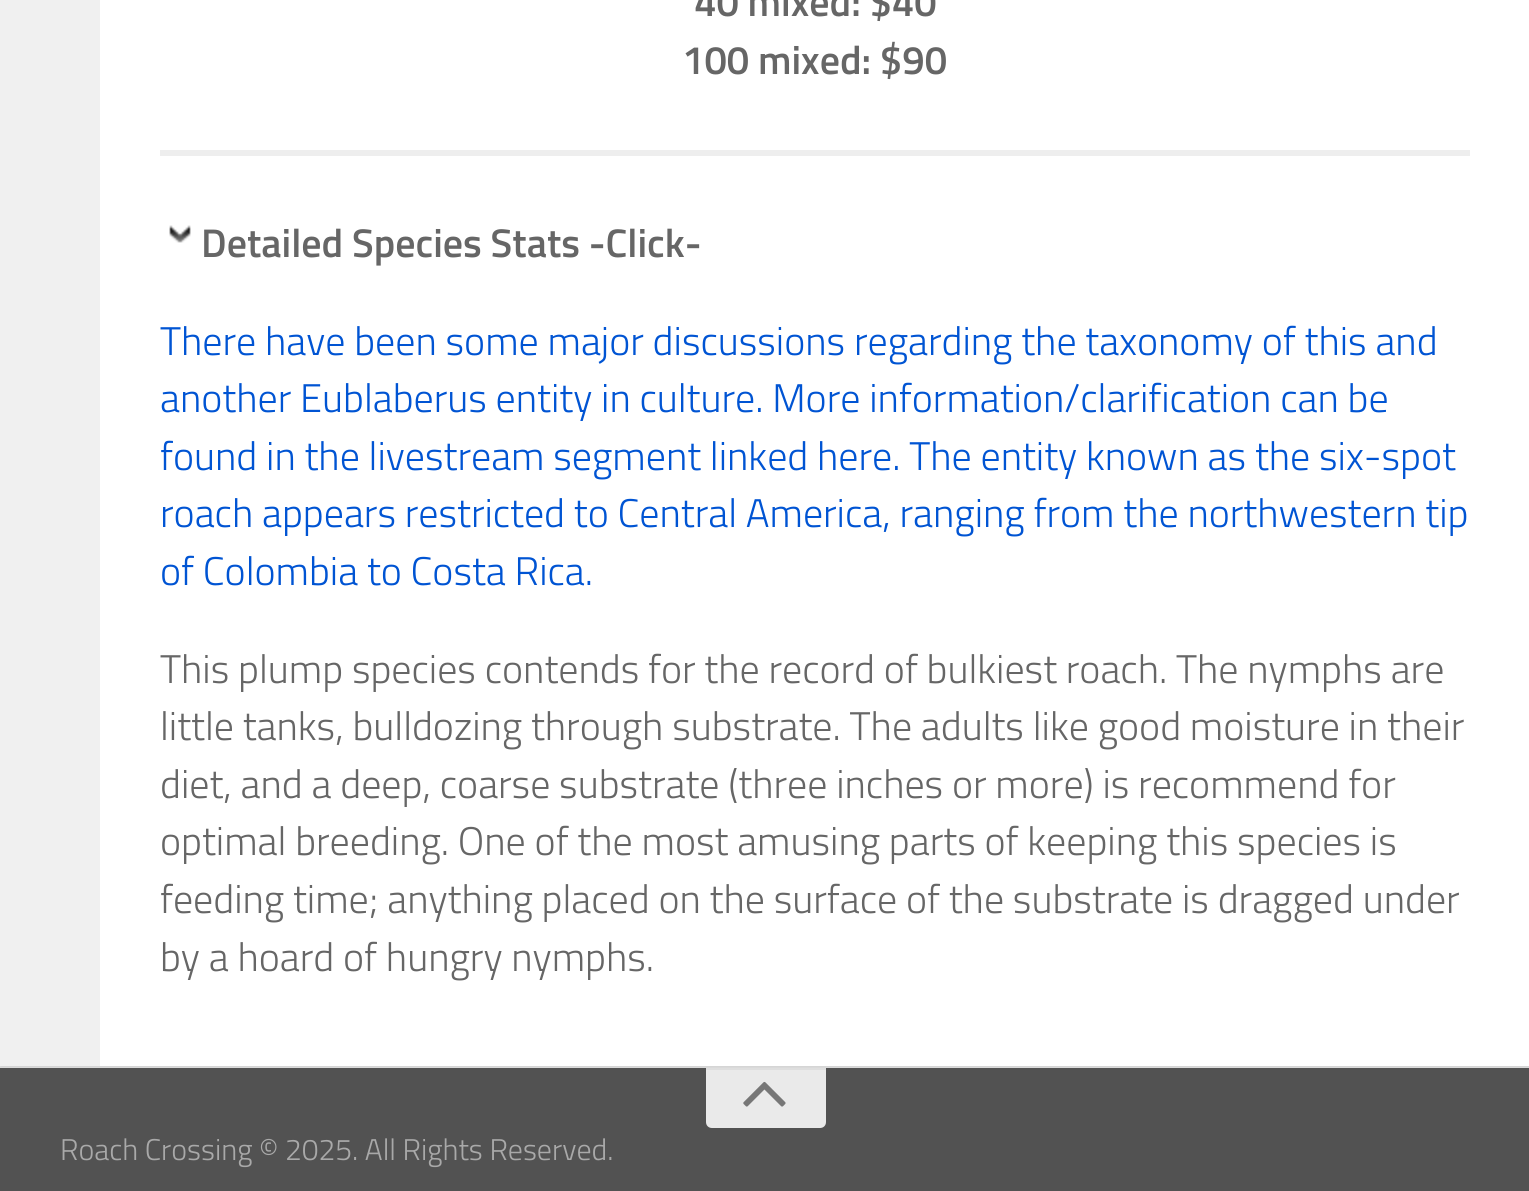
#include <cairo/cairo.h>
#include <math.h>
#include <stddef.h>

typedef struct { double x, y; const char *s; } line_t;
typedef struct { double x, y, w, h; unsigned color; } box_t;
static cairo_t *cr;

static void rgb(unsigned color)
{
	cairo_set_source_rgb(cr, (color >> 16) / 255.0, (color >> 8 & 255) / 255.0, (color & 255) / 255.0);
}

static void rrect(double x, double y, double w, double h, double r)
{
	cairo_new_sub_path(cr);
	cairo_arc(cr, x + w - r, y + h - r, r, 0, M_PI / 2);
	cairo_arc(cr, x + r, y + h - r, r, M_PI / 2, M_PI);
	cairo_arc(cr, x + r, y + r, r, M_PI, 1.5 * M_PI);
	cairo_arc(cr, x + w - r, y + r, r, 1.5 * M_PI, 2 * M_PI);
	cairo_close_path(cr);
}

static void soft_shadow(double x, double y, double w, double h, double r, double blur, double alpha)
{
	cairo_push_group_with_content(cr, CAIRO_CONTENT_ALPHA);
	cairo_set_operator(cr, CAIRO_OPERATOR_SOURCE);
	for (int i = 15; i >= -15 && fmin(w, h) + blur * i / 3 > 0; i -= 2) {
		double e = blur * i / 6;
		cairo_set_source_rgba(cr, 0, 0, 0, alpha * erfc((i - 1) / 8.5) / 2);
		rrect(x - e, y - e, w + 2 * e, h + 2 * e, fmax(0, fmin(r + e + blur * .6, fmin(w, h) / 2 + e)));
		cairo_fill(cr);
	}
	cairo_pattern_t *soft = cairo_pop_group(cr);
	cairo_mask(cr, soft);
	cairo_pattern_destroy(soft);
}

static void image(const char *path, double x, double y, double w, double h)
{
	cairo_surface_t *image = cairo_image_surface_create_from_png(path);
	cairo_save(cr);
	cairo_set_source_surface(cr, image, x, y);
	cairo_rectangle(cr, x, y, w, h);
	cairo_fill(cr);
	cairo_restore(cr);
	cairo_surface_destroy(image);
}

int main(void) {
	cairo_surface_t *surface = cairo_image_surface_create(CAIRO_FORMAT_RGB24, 1529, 1191);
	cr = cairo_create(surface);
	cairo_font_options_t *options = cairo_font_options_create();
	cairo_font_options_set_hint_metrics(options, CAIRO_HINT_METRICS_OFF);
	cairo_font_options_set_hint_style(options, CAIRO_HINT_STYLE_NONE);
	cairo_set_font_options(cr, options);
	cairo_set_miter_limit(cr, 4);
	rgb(0xeaeaea);
	cairo_paint(cr);
	rgb(0x000000);
	soft_shadow(0, -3, 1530, 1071, 0, 1, 0.1);
	{
		static const box_t items[] = {
			{100, 0, 1429, 1066, 0xffffff},
			{0, 0, 100, 1066, 0xf0f0f0},
			{160, 150, 1310, 6, 0xeeeeee},
		};
		for (size_t i = 0; i < sizeof items / sizeof *items; i++) {
			rgb(items[i].color);
			cairo_rectangle(cr, items[i].x, items[i].y, items[i].w, items[i].h);
			cairo_fill(cr);
		}
	}
	image("img/1.png", 169, 225, 22, 18);
	rgb(0x525252);
	cairo_rectangle(cr, 0, 1068, 1529, 123);
	cairo_fill(cr);
	rgb(0xeaeaea);
	cairo_new_path(cr);
	cairo_move_to(cr, 706, 1068);
	cairo_line_to(cr, 826, 1068);
	cairo_line_to(cr, 826, 1122);
	cairo_curve_to(cr, 826, 1125.5, 823.5, 1128, 820, 1128);
	cairo_line_to(cr, 712, 1128);
	cairo_curve_to(cr, 708.5, 1128, 706, 1125.5, 706, 1122);
	cairo_close_path(cr);
	cairo_fill(cr);
	rgb(0xdedede);
	cairo_rectangle(cr, 706, 1068, 120, 2);
	cairo_fill(cr);
	image("img/2.png", 743, 1081, 43, 26);
	cairo_select_font_face(cr, "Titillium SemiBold", CAIRO_FONT_SLANT_NORMAL, CAIRO_FONT_WEIGHT_NORMAL);
	cairo_set_font_size(cr, 40);
	rgb(0x666666);
	{
		static const line_t items[] = {
			{694, 16, "40 mixed: $40"},
			{682, 74, "100 mixed: $90"},
			{201, 257, "Detailed Species Stats -Click-"},
		};
		for (size_t i = 0; i < sizeof items / sizeof *items; i++) {
			cairo_move_to(cr, items[i].x, items[i].y);
			cairo_show_text(cr, items[i].s);
		}
	}
	cairo_select_font_face(cr, "Titillium Light", CAIRO_FONT_SLANT_NORMAL, CAIRO_FONT_WEIGHT_NORMAL);
	rgb(0x0054d3);
	{
		static const line_t items[] = {
			{160, 355, "There have been some major discussions regarding the taxonomy of this and"},
			{160, 412, "another Eublaberus entity in culture. More information/clarification can be"},
			{160, 470, "found in the livestream segment linked here. The entity known as the six-spot"},
			{160, 527, "roach appears restricted to Central America, ranging from the northwestern tip"},
			{160, 585, "of Colombia to Costa Rica."},
		};
		for (size_t i = 0; i < sizeof items / sizeof *items; i++) {
			cairo_move_to(cr, items[i].x, items[i].y);
			cairo_show_text(cr, items[i].s);
		}
	}
	rgb(0x666666);
	{
		static const line_t items[] = {
			{160, 683, "This plump species contends for the record of bulkiest roach. The nymphs are"},
			{160, 740, "little tanks, bulldozing through substrate. The adults like good moisture in their"},
			{160, 798, "diet, and a deep, coarse substrate (three inches or more) is recommend for"},
			{160, 855, "optimal breeding. One of the most amusing parts of keeping this species is"},
			{160, 913, "feeding time; anything placed on the surface of the substrate is dragged under"},
			{160, 971, "by a hoard of hungry nymphs."},
		};
		for (size_t i = 0; i < sizeof items / sizeof *items; i++) {
			cairo_move_to(cr, items[i].x, items[i].y);
			cairo_show_text(cr, items[i].s);
		}
	}
	cairo_set_font_size(cr, 30);
	rgb(0xa9a9a9);
	cairo_move_to(cr, 60, 1160);
	cairo_show_text(cr, "Roach Crossing © 2025. All Rights Reserved.");
	cairo_surface_write_to_png(surface, "page.png");
	cairo_font_options_destroy(options);
	cairo_destroy(cr);
	cairo_surface_destroy(surface);
	return 0;
}
